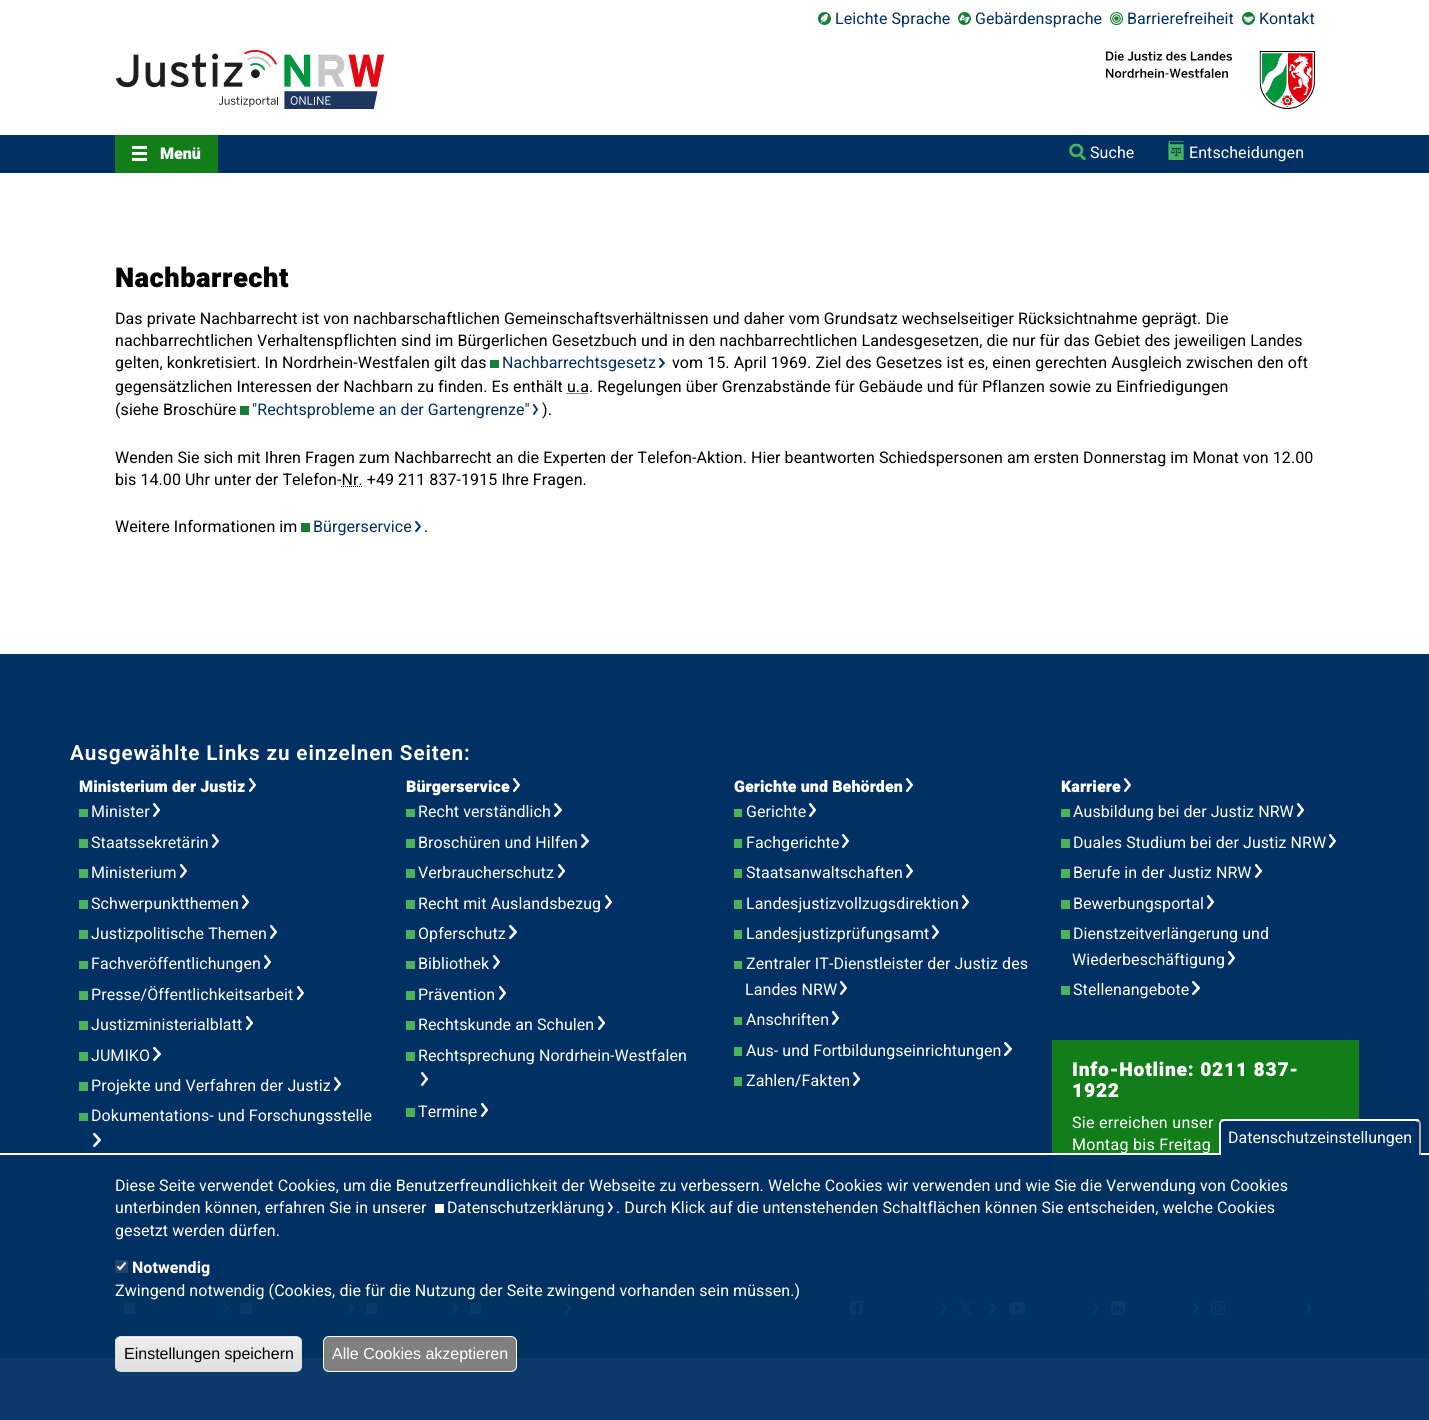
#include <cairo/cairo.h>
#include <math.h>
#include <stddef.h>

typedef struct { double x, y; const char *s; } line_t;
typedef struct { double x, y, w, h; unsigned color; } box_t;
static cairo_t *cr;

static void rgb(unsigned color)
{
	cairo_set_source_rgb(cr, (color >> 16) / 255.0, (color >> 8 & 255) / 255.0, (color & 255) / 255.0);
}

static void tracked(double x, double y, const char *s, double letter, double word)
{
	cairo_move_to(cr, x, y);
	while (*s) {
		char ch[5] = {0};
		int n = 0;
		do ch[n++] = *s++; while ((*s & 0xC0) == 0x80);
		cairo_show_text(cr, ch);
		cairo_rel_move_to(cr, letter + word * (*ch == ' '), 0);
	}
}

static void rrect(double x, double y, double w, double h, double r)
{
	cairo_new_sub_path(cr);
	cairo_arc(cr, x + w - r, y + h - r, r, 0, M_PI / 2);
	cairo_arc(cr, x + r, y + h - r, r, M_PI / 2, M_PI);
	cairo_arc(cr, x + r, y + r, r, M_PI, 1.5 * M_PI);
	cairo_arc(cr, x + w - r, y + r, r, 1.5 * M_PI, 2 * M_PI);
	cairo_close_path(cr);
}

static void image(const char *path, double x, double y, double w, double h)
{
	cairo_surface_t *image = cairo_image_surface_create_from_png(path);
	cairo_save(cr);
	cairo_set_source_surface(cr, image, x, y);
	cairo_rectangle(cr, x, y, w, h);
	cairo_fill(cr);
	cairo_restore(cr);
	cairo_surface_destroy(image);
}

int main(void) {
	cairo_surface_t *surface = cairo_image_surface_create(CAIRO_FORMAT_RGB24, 1429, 1420);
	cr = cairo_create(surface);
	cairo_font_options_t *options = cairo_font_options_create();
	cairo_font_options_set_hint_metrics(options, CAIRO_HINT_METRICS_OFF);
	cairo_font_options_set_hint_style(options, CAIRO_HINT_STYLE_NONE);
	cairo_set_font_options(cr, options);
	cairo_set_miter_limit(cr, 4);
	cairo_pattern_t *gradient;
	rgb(0xffffff);
	cairo_paint(cr);
	image("img/1.png", 818, 12, 13, 13);
	image("img/2.png", 958, 12, 13, 13);
	image("img/3.png", 1110, 12, 13, 13);
	image("img/4.png", 1242, 12, 13, 13);
	image("img/5.png", 115, 50, 270, 59);
	image("img/6.png", 1106, 51, 209, 58);
	rgb(0x003064);
	cairo_rectangle(cr, 0, 135, 1429, 38);
	cairo_fill(cr);
	rgb(0x117e1a);
	cairo_rectangle(cr, 115, 135, 103, 38);
	cairo_fill(cr);
	image("img/7.png", 132, 146, 15, 15);
	image("img/8.png", 1069, 143, 17, 17);
	image("img/9.png", 1168, 141, 16, 19);
	rgb(0x167f35);
	cairo_rectangle(cr, 490, 360, 9, 8);
	cairo_fill(cr);
	image("img/10.png", 659, 358, 6, 10);
	cairo_new_path(cr);
	cairo_move_to(cr, 566.5, 393.5);
	cairo_line_to(cr, 588.5, 393.5);
	rgb(0x000000);
	cairo_set_line_width(cr, 1);
	cairo_set_dash(cr, (double[]){1, 1}, 2, 0);
	cairo_stroke(cr);
	rgb(0x167f35);
	cairo_rectangle(cr, 240, 406, 9, 9);
	cairo_fill(cr);
	image("img/11.png", 533, 404, 5, 11);
	cairo_new_path(cr);
	cairo_move_to(cr, 341, 486.5);
	cairo_line_to(cr, 362.5, 486.5);
	rgb(0x000000);
	cairo_stroke(cr);
	rgb(0x167f35);
	cairo_rectangle(cr, 301, 523, 9, 9);
	cairo_fill(cr);
	image("img/12.png", 415, 521, 6, 11);
	rgb(0x003064);
	cairo_rectangle(cr, 0, 654, 1429, 635);
	cairo_fill(cr);
	image("img/13.png", 249, 778, 7, 14);
	rgb(0x4ab25b);
	cairo_rectangle(cr, 79, 809, 9, 8);
	cairo_fill(cr);
	image("img/14.png", 153, 803, 7, 14);
	cairo_rectangle(cr, 79, 839, 9, 9);
	cairo_fill(cr);
	image("img/14.png", 212, 834, 7, 14);
	cairo_rectangle(cr, 79, 869, 9, 9);
	cairo_fill(cr);
	image("img/14.png", 180, 864, 7, 14);
	cairo_rectangle(cr, 79, 900, 9, 9);
	cairo_fill(cr);
	image("img/14.png", 242, 895, 7, 14);
	cairo_rectangle(cr, 79, 930, 9, 9);
	cairo_fill(cr);
	image("img/15.png", 270, 925, 7, 14);
	cairo_rectangle(cr, 79, 961, 9, 8);
	cairo_fill(cr);
	image("img/15.png", 264, 955, 7, 14);
	cairo_rectangle(cr, 79, 991, 9, 9);
	cairo_fill(cr);
	image("img/15.png", 297, 986, 7, 14);
	cairo_rectangle(cr, 79, 1021, 9, 9);
	cairo_fill(cr);
	image("img/14.png", 246, 1016, 7, 14);
	cairo_rectangle(cr, 79, 1052, 9, 9);
	cairo_fill(cr);
	image("img/16.png", 153, 1047, 8, 14);
	cairo_rectangle(cr, 79, 1082, 9, 9);
	cairo_fill(cr);
	image("img/14.png", 334, 1077, 7, 14);
	cairo_rectangle(cr, 79, 1113, 9, 8);
	cairo_fill(cr);
	image("img/16.png", 93, 1133, 8, 14);
	image("img/15.png", 513, 778, 7, 14);
	cairo_rectangle(cr, 406, 809, 9, 8);
	cairo_fill(cr);
	image("img/16.png", 554, 803, 8, 14);
	cairo_rectangle(cr, 406, 839, 9, 9);
	cairo_fill(cr);
	image("img/16.png", 581, 834, 8, 14);
	cairo_rectangle(cr, 406, 869, 9, 9);
	cairo_fill(cr);
	image("img/15.png", 558, 864, 7, 14);
	cairo_rectangle(cr, 406, 900, 9, 9);
	cairo_fill(cr);
	image("img/14.png", 605, 895, 7, 14);
	cairo_rectangle(cr, 406, 930, 9, 9);
	cairo_fill(cr);
	image("img/16.png", 509, 925, 8, 14);
	cairo_rectangle(cr, 406, 961, 9, 8);
	cairo_fill(cr);
	image("img/14.png", 493, 955, 7, 14);
	cairo_rectangle(cr, 406, 991, 9, 9);
	cairo_fill(cr);
	image("img/14.png", 499, 986, 7, 14);
	cairo_rectangle(cr, 406, 1021, 9, 9);
	cairo_fill(cr);
	image("img/14.png", 598, 1016, 7, 14);
	cairo_rectangle(cr, 406, 1052, 9, 9);
	cairo_fill(cr);
	image("img/14.png", 421, 1072, 7, 14);
	cairo_rectangle(cr, 406, 1108, 9, 9);
	cairo_fill(cr);
	image("img/14.png", 481, 1103, 7, 14);
	image("img/14.png", 906, 778, 7, 14);
	cairo_rectangle(cr, 734, 809, 8, 8);
	cairo_fill(cr);
	image("img/15.png", 809, 803, 7, 14);
	cairo_rectangle(cr, 734, 839, 8, 9);
	cairo_fill(cr);
	image("img/14.png", 842, 834, 7, 14);
	cairo_rectangle(cr, 734, 869, 8, 9);
	cairo_fill(cr);
	image("img/14.png", 906, 864, 7, 14);
	cairo_rectangle(cr, 734, 900, 8, 9);
	cairo_fill(cr);
	image("img/14.png", 962, 895, 7, 14);
	cairo_rectangle(cr, 734, 930, 8, 9);
	cairo_fill(cr);
	image("img/14.png", 932, 925, 7, 14);
	cairo_rectangle(cr, 734, 961, 8, 8);
	cairo_fill(cr);
	image("img/14.png", 840, 981, 7, 14);
	cairo_rectangle(cr, 734, 1017, 8, 8);
	cairo_fill(cr);
	image("img/14.png", 832, 1011, 7, 14);
	cairo_rectangle(cr, 734, 1047, 8, 9);
	cairo_fill(cr);
	image("img/16.png", 1004, 1042, 8, 14);
	cairo_rectangle(cr, 734, 1077, 8, 9);
	cairo_fill(cr);
	image("img/14.png", 853, 1072, 7, 14);
	image("img/14.png", 1124, 778, 7, 14);
	cairo_rectangle(cr, 1061, 809, 9, 8);
	cairo_fill(cr);
	image("img/15.png", 1297, 803, 7, 14);
	cairo_rectangle(cr, 1061, 839, 9, 9);
	cairo_fill(cr);
	image("img/14.png", 1329, 834, 7, 14);
	cairo_rectangle(cr, 1061, 869, 9, 9);
	cairo_fill(cr);
	image("img/14.png", 1255, 864, 7, 14);
	cairo_rectangle(cr, 1061, 900, 9, 9);
	cairo_fill(cr);
	image("img/14.png", 1207, 895, 7, 14);
	cairo_rectangle(cr, 1061, 930, 9, 9);
	cairo_fill(cr);
	image("img/14.png", 1228, 951, 7, 14);
	cairo_rectangle(cr, 1061, 986, 9, 9);
	cairo_fill(cr);
	image("img/16.png", 1192, 981, 8, 14);
	{
		static const box_t items[] = {
			{1052, 1040, 307, 159, 0x117e1a},
			{0, 1289, 1429, 69, 0x117e1a},
			{124, 1303, 11, 11, 0xffffff},
		};
		for (size_t i = 0; i < sizeof items / sizeof *items; i++) {
			rgb(items[i].color);
			cairo_rectangle(cr, items[i].x, items[i].y, items[i].w, items[i].h);
			cairo_fill(cr);
		}
	}
	image("img/17.png", 223, 1303, 5, 11);
	cairo_rectangle(cr, 240, 1303, 12, 11);
	cairo_fill(cr);
	image("img/18.png", 348, 1303, 6, 11);
	cairo_rectangle(cr, 366, 1303, 11, 11);
	cairo_fill(cr);
	image("img/18.png", 452, 1303, 6, 11);
	cairo_rectangle(cr, 470, 1303, 11, 11);
	cairo_fill(cr);
	image("img/18.png", 565, 1303, 6, 11);
	image("img/19.png", 849, 1301, 14, 14);
	image("img/17.png", 941, 1303, 5, 11);
	image("img/20.png", 959, 1300, 15, 15);
	image("img/18.png", 990, 1303, 6, 11);
	image("img/21.png", 1009, 1302, 16, 13);
	image("img/17.png", 1093, 1303, 5, 11);
	image("img/22.png", 1111, 1301, 14, 14);
	image("img/18.png", 1193, 1303, 6, 11);
	image("img/23.png", 1211, 1301, 14, 14);
	image("img/17.png", 1306, 1303, 5, 11);
	cairo_set_source_rgba(cr, 0, 0.188, 0.392, 0.95);
	cairo_rectangle(cr, 0, 1155, 1429, 265);
	cairo_fill(cr);
	rgb(0xffffff);
	cairo_rectangle(cr, 0, 1153, 1429, 2);
	cairo_fill(cr);
	rgb(0x003064);
	cairo_new_path(cr);
	cairo_move_to(cr, 1224, 1119);
	cairo_line_to(cr, 1416, 1119);
	cairo_curve_to(cr, 1419, 1119, 1421, 1121, 1421, 1124);
	cairo_line_to(cr, 1421, 1155);
	cairo_line_to(cr, 1219, 1155);
	cairo_line_to(cr, 1219, 1124);
	cairo_curve_to(cr, 1219, 1121, 1221, 1119, 1224, 1119);
	cairo_close_path(cr);
	cairo_fill(cr);
	rgb(0xffffff);
	cairo_new_path(cr);
	cairo_move_to(cr, 1224, 1121);
	cairo_line_to(cr, 1222, 1122);
	cairo_line_to(cr, 1220, 1121);
	cairo_line_to(cr, 1222, 1119);
	cairo_line_to(cr, 1418, 1119);
	cairo_line_to(cr, 1420, 1121);
	cairo_line_to(cr, 1418, 1122);
	cairo_line_to(cr, 1416, 1121);
	cairo_close_path(cr);
	cairo_fill(cr);
	rgb(0xaaaaaa);
	cairo_new_path(cr);
	cairo_move_to(cr, 1421, 1155);
	cairo_line_to(cr, 1421, 1124);
	cairo_curve_to(cr, 1421, 1123, 1420.5, 1122, 1419.5, 1121);
	cairo_line_to(cr, 1418.5, 1122);
	cairo_curve_to(cr, 1419, 1123, 1419, 1123.5, 1419, 1124);
	cairo_line_to(cr, 1419, 1155);
	cairo_close_path(cr);
	cairo_fill(cr);
	rgb(0xffffff);
	cairo_new_path(cr);
	cairo_move_to(cr, 1219, 1124);
	cairo_line_to(cr, 1219, 1155);
	cairo_line_to(cr, 1221, 1155);
	cairo_line_to(cr, 1221, 1124);
	cairo_curve_to(cr, 1221, 1123.5, 1221, 1123, 1221.5, 1122);
	cairo_line_to(cr, 1220.5, 1121);
	cairo_curve_to(cr, 1219.5, 1122, 1219, 1123, 1219, 1124);
	cairo_close_path(cr);
	cairo_fill(cr);
	cairo_rectangle(cr, 435, 1204, 9, 9);
	cairo_fill(cr);
	image("img/24.png", 608, 1202, 5, 11);
	rgb(0x234569);
	rrect(115, 1260, 13, 13, 2);
	cairo_fill(cr);
	cairo_new_path(cr);
	cairo_move_to(cr, 117.5, 1266.5);
	cairo_line_to(cr, 120, 1269);
	cairo_line_to(cr, 125.5, 1262.5);
	rgb(0xffffff);
	cairo_set_line_width(cr, 2.1);
	cairo_set_dash(cr, NULL, 0, 0);
	cairo_stroke(cr);
	cairo_save(cr);
	rrect(115, 1336, 187, 36, 6);
	cairo_clip(cr);
	gradient = cairo_pattern_create_linear(209, 1337, 209, 1371);
	cairo_pattern_add_color_stop_rgba(gradient, 0.05, 0.929, 0.929, 0.929, 1);
	cairo_pattern_add_color_stop_rgba(gradient, 1, 0.875, 0.875, 0.875, 1);
	cairo_set_source(cr, gradient);
	cairo_pattern_destroy(gradient);
	cairo_rectangle(cr, 115, 1337, 187, 34);
	cairo_fill(cr);
	cairo_restore(cr);
	cairo_new_path(cr);
	cairo_move_to(cr, 121, 1338);
	cairo_line_to(cr, 296, 1338);
	cairo_curve_to(cr, 299, 1338, 301, 1340, 301, 1343);
	cairo_curve_to(cr, 301, 1340, 300, 1338, 297, 1337);
	cairo_line_to(cr, 120, 1337);
	cairo_curve_to(cr, 117, 1338, 116, 1340, 116, 1343);
	cairo_curve_to(cr, 116, 1340, 118, 1338, 121, 1338);
	cairo_close_path(cr);
	cairo_fill(cr);
	rrect(115.5, 1336.5, 186, 35, 5.5);
	rgb(0xdcdcdc);
	cairo_set_line_width(cr, 1);
	cairo_stroke(cr);
	rgb(0x808080);
	rrect(323.5, 1336.5, 193, 35, 5.5);
	cairo_fill_preserve(cr);
	rgb(0xffffff);
	cairo_stroke(cr);
	cairo_select_font_face(cr, "Heebo", CAIRO_FONT_SLANT_NORMAL, CAIRO_FONT_WEIGHT_NORMAL);
	cairo_set_font_size(cr, 16);
	rgb(0x003064);
	{
		static const line_t items[] = {
			{835, 24, "Leichte Sprache"},
			{975, 24, "Gebärdensprache"},
			{1127, 24, "Barrierefreiheit"},
			{1259, 24, "Kontakt"},
		};
		for (size_t i = 0; i < sizeof items / sizeof *items; i++) {
			tracked(items[i].x, items[i].y, items[i].s, 0.08, 0);
		}
	}
	cairo_select_font_face(cr, "Heebo Black", CAIRO_FONT_SLANT_NORMAL, CAIRO_FONT_WEIGHT_NORMAL);
	rgb(0xffffff);
	cairo_move_to(cr, 160, 159);
	cairo_show_text(cr, "Menü");
	cairo_select_font_face(cr, "Heebo", CAIRO_FONT_SLANT_NORMAL, CAIRO_FONT_WEIGHT_NORMAL);
	tracked(1090, 158, "Suche", 0.08, 0);
	tracked(1189, 158, "Entscheidungen", 0.08, 0);
	cairo_select_font_face(cr, "Heebo Black", CAIRO_FONT_SLANT_NORMAL, CAIRO_FONT_WEIGHT_NORMAL);
	cairo_set_font_size(cr, 27.25);
	rgb(0x000000);
	tracked(115, 287, "Nachbarrecht", 0.5, 0);
	cairo_select_font_face(cr, "Heebo", CAIRO_FONT_SLANT_NORMAL, CAIRO_FONT_WEIGHT_NORMAL);
	cairo_set_font_size(cr, 16);
	{
		static const line_t items[] = {
			{115, 324, "Das private Nachbarrecht ist von nachbarschaftlichen Gemeinschaftsverhältnissen und daher vom Grundsatz wechselseitiger Rücksichtnahme geprägt. Die"},
			{115, 346, "nachbarrechtlichen Verhaltenspflichten sind im Bürgerlichen Gesetzbuch und in den nachbarrechtlichen Landesgesetzen, die nur für das Gebiet des jeweiligen Landes"},
			{115, 368, "gelten, konkretisiert. In Nordrhein-Westfalen gilt das"},
		};
		for (size_t i = 0; i < sizeof items / sizeof *items; i++) {
			tracked(items[i].x, items[i].y, items[i].s, 0.08, 0);
		}
	}
	rgb(0x003064);
	tracked(502, 368, "Nachbarrechtsgesetz", 0.08, 0);
	rgb(0x000000);
	{
		static const line_t items[] = {
			{672, 368, "vom 15. April 1969. Ziel des Gesetzes ist es, einen gerechten Ausgleich zwischen den oft"},
			{115, 392, "gegensätzlichen Interessen der Nachbarn zu finden. Es enthält u.a. Regelungen über Grenzabstände für Gebäude und für Pflanzen sowie zu Einfriedigungen"},
			{115, 415, "(siehe Broschüre"},
		};
		for (size_t i = 0; i < sizeof items / sizeof *items; i++) {
			tracked(items[i].x, items[i].y, items[i].s, 0.08, 0);
		}
	}
	rgb(0x003064);
	tracked(252, 415, "\"Rechtsprobleme an der Gartengrenze\"", 0.08, 0);
	rgb(0x000000);
	{
		static const line_t items[] = {
			{542, 415, ")."},
			{115, 463, "Wenden Sie sich mit Ihren Fragen zum Nachbarrecht an die Experten der Telefon-Aktion. Hier beantworten Schiedspersonen am ersten Donnerstag im Monat von 12.00"},
			{115, 485, "bis 14.00 Uhr unter der Telefon-Nr. +49 211 837-1915 Ihre Fragen."},
			{115, 532, "Weitere Informationen im"},
		};
		for (size_t i = 0; i < sizeof items / sizeof *items; i++) {
			tracked(items[i].x, items[i].y, items[i].s, 0.08, 0);
		}
	}
	rgb(0x003064);
	tracked(313, 532, "Bürgerservice", 0.08, 0);
	rgb(0x000000);
	tracked(424, 532, ".", 0.08, 0);
	cairo_select_font_face(cr, "Heebo SemiBold", CAIRO_FONT_SLANT_NORMAL, CAIRO_FONT_WEIGHT_NORMAL);
	cairo_set_font_size(cr, 20.75);
	rgb(0xffffff);
	tracked(70, 760, "Ausgewählte Links zu einzelnen Seiten:", 0.85, 0);
	cairo_select_font_face(cr, "Heebo Black", CAIRO_FONT_SLANT_NORMAL, CAIRO_FONT_WEIGHT_NORMAL);
	cairo_set_font_size(cr, 16);
	tracked(79, 792, "Ministerium der Justiz", 0.08, 0);
	cairo_select_font_face(cr, "Heebo", CAIRO_FONT_SLANT_NORMAL, CAIRO_FONT_WEIGHT_NORMAL);
	{
		static const line_t items[] = {
			{91, 817, "Minister"},
			{91, 848, "Staatssekretärin"},
			{91, 878, "Ministerium"},
			{91, 909, "Schwerpunktthemen"},
			{91, 939, "Justizpolitische Themen"},
			{91, 969, "Fachveröffentlichungen"},
			{91, 1000, "Presse/Öffentlichkeitsarbeit"},
			{91, 1030, "Justizministerialblatt"},
			{91, 1061, "JUMIKO"},
			{91, 1091, "Projekte und Verfahren der Justiz"},
			{91, 1121, "Dokumentations- und Forschungsstelle"},
		};
		for (size_t i = 0; i < sizeof items / sizeof *items; i++) {
			tracked(items[i].x, items[i].y, items[i].s, 0.08, 0);
		}
	}
	cairo_select_font_face(cr, "Heebo Black", CAIRO_FONT_SLANT_NORMAL, CAIRO_FONT_WEIGHT_NORMAL);
	tracked(406, 792, "Bürgerservice", 0.08, 0);
	cairo_select_font_face(cr, "Heebo", CAIRO_FONT_SLANT_NORMAL, CAIRO_FONT_WEIGHT_NORMAL);
	{
		static const line_t items[] = {
			{418, 817, "Recht verständlich"},
			{418, 848, "Broschüren und Hilfen"},
			{418, 878, "Verbraucherschutz"},
			{418, 909, "Recht mit Auslandsbezug"},
			{418, 939, "Opferschutz"},
			{418, 969, "Bibliothek"},
			{418, 1000, "Prävention"},
			{418, 1030, "Rechtskunde an Schulen"},
			{418, 1061, "Rechtsprechung Nordrhein-Westfalen"},
			{418, 1117, "Termine"},
		};
		for (size_t i = 0; i < sizeof items / sizeof *items; i++) {
			tracked(items[i].x, items[i].y, items[i].s, 0.08, 0);
		}
	}
	cairo_select_font_face(cr, "Heebo Black", CAIRO_FONT_SLANT_NORMAL, CAIRO_FONT_WEIGHT_NORMAL);
	tracked(734, 792, "Gerichte und Behörden", 0.08, 0);
	cairo_select_font_face(cr, "Heebo", CAIRO_FONT_SLANT_NORMAL, CAIRO_FONT_WEIGHT_NORMAL);
	{
		static const line_t items[] = {
			{746, 817, "Gerichte"},
			{746, 848, "Fachgerichte"},
			{746, 878, "Staatsanwaltschaften"},
			{746, 909, "Landesjustizvollzugsdirektion"},
			{746, 939, "Landesjustizprüfungsamt"},
			{746, 969, "Zentraler IT-Dienstleister der Justiz des"},
			{745, 995, "Landes NRW"},
			{746, 1025, "Anschriften"},
			{746, 1056, "Aus- und Fortbildungseinrichtungen"},
			{746, 1086, "Zahlen/Fakten"},
		};
		for (size_t i = 0; i < sizeof items / sizeof *items; i++) {
			tracked(items[i].x, items[i].y, items[i].s, 0.08, 0);
		}
	}
	cairo_select_font_face(cr, "Heebo Black", CAIRO_FONT_SLANT_NORMAL, CAIRO_FONT_WEIGHT_NORMAL);
	tracked(1061, 792, "Karriere", 0.08, 0);
	cairo_select_font_face(cr, "Heebo", CAIRO_FONT_SLANT_NORMAL, CAIRO_FONT_WEIGHT_NORMAL);
	{
		static const line_t items[] = {
			{1073, 817, "Ausbildung bei der Justiz NRW"},
			{1073, 848, "Duales Studium bei der Justiz NRW"},
			{1073, 878, "Berufe in der Justiz NRW"},
			{1073, 909, "Bewerbungsportal"},
			{1073, 939, "Dienstzeitverlängerung und"},
			{1072, 965, "Wiederbeschäftigung"},
			{1073, 995, "Stellenangebote"},
		};
		for (size_t i = 0; i < sizeof items / sizeof *items; i++) {
			tracked(items[i].x, items[i].y, items[i].s, 0.08, 0);
		}
	}
	cairo_select_font_face(cr, "Heebo Black", CAIRO_FONT_SLANT_NORMAL, CAIRO_FONT_WEIGHT_NORMAL);
	cairo_set_font_size(cr, 19.25);
	tracked(1072, 1076, "Info-Hotline: 0211 837-", 0.75, 0);
	tracked(1072, 1097, "1922", 0.75, 0);
	cairo_select_font_face(cr, "Heebo", CAIRO_FONT_SLANT_NORMAL, CAIRO_FONT_WEIGHT_NORMAL);
	cairo_set_font_size(cr, 16);
	tracked(1072, 1128, "Sie erreichen unser", 0.3, 0);
	tracked(1072, 1150, "Montag bis Freitag", 0.3, 0);
	cairo_move_to(cr, 1228, 1143);
	cairo_show_text(cr, "Datenschutzeinstellungen");
	{
		static const line_t items[] = {
			{115, 1191, "Diese Seite verwendet Cookies, um die Benutzerfreundlichkeit der Webseite zu verbessern. Welche Cookies wir verwenden und wie Sie die Verwendung von Cookies"},
			{115, 1213, "unterbinden können, erfahren Sie in unserer"},
			{447, 1213, "Datenschutzerklärung"},
			{616, 1213, ". Durch Klick auf die untenstehenden Schaltflächen können Sie entscheiden, welche Cookies"},
			{115, 1236, "gesetzt werden dürfen."},
		};
		for (size_t i = 0; i < sizeof items / sizeof *items; i++) {
			tracked(items[i].x, items[i].y, items[i].s, 0.08, 0);
		}
	}
	cairo_select_font_face(cr, "Heebo", CAIRO_FONT_SLANT_NORMAL, CAIRO_FONT_WEIGHT_BOLD);
	tracked(132, 1273, "Notwendig", 0.08, 0);
	cairo_select_font_face(cr, "Heebo", CAIRO_FONT_SLANT_NORMAL, CAIRO_FONT_WEIGHT_NORMAL);
	tracked(115, 1296, "Zwingend notwendig (Cookies, die für die Nutzung der Seite zwingend vorhanden sein müssen.)", 0.08, 0);
	cairo_select_font_face(cr, "Liberation Sans", CAIRO_FONT_SLANT_NORMAL, CAIRO_FONT_WEIGHT_NORMAL);
	rgb(0x000000);
	cairo_move_to(cr, 124, 1359);
	cairo_show_text(cr, "Einstellungen speichern");
	rgb(0xffffff);
	cairo_move_to(cr, 332, 1359);
	cairo_show_text(cr, "Alle Cookies akzeptieren");
	cairo_surface_write_to_png(surface, "page.png");
	cairo_font_options_destroy(options);
	cairo_destroy(cr);
	cairo_surface_destroy(surface);
	return 0;
}
